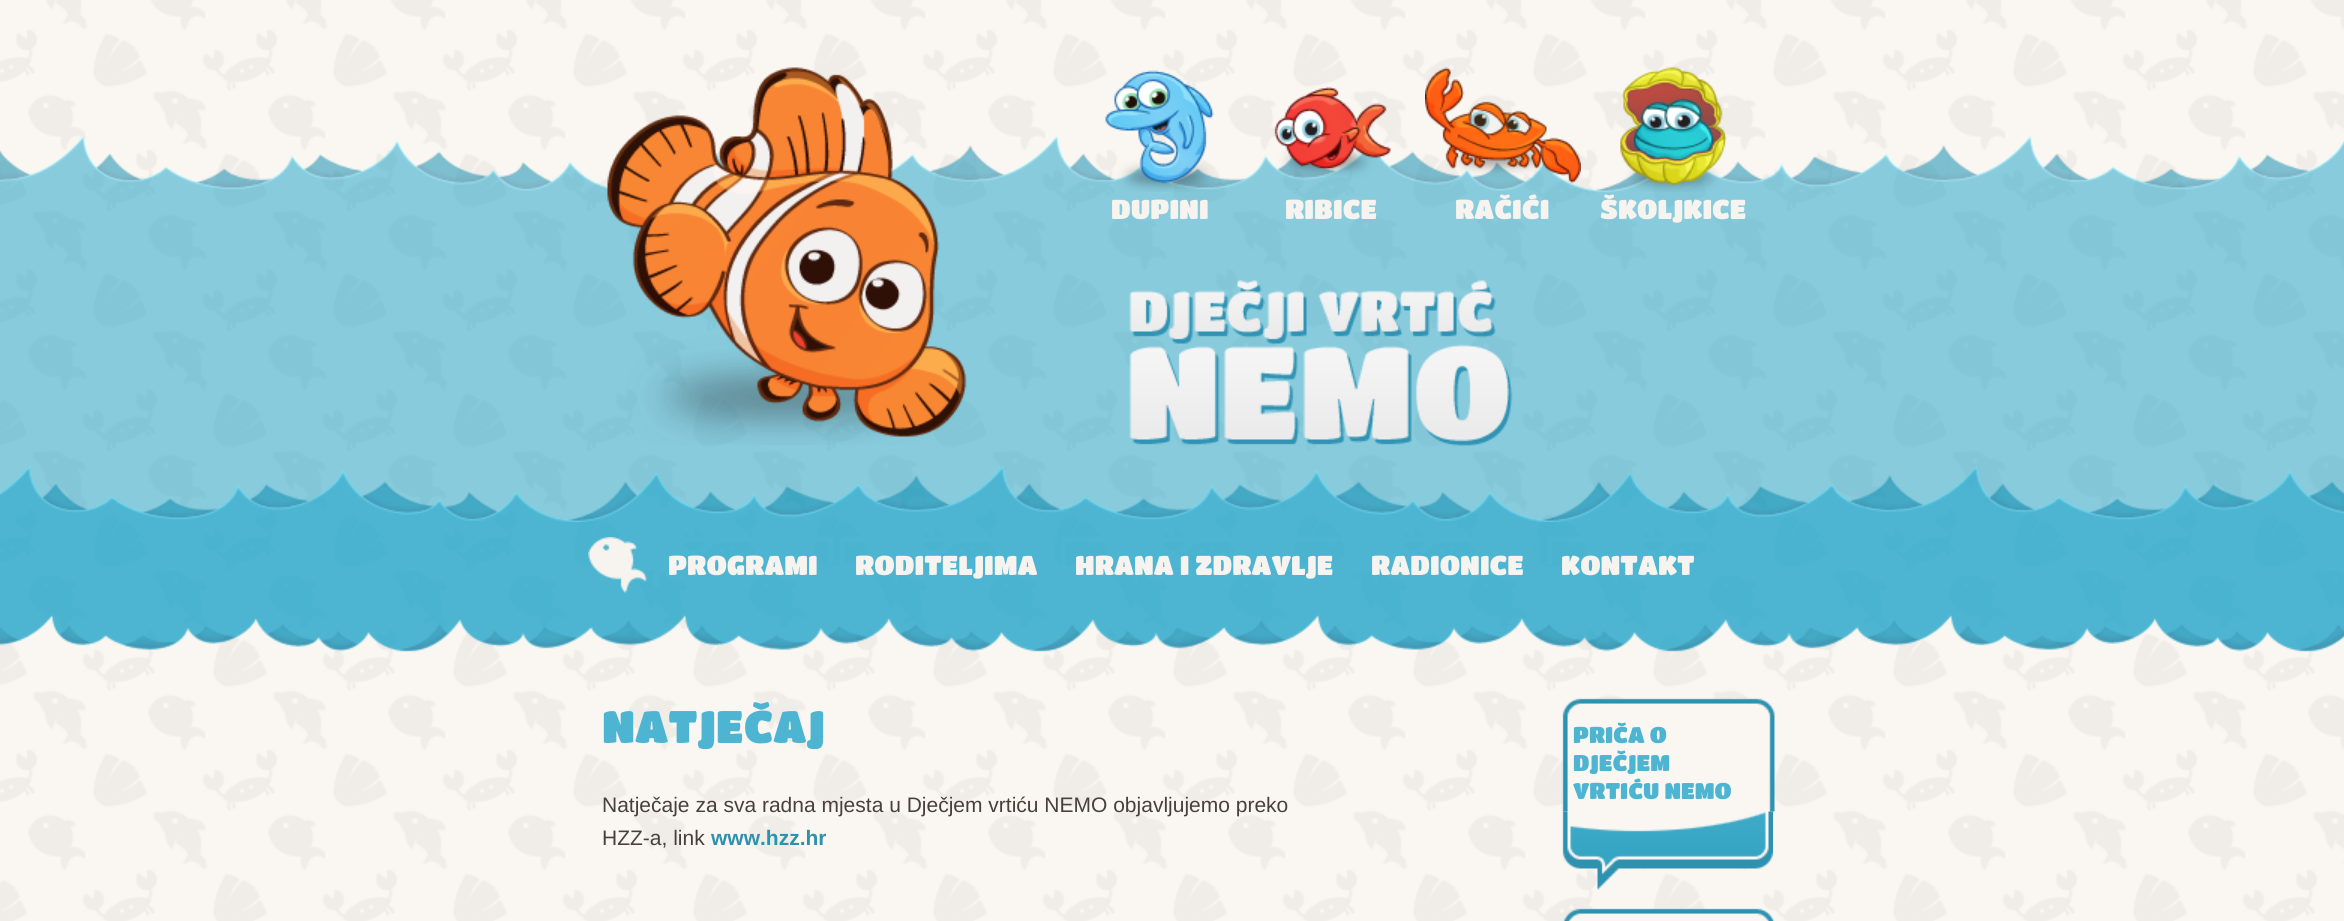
#include <cairo/cairo.h>
#include <math.h>
#include <stddef.h>

typedef struct { double x, y; const char *s; } line_t;
typedef struct { double x, y, w, h; unsigned color; } box_t;
static cairo_t *cr;

static void rgb(unsigned color)
{
	cairo_set_source_rgb(cr, (color >> 16) / 255.0, (color >> 8 & 255) / 255.0, (color & 255) / 255.0);
}

static void image(const char *path, double x, double y, double w, double h)
{
	cairo_surface_t *image = cairo_image_surface_create_from_png(path);
	cairo_save(cr);
	cairo_set_source_surface(cr, image, x, y);
	cairo_rectangle(cr, x, y, w, h);
	cairo_fill(cr);
	cairo_restore(cr);
	cairo_surface_destroy(image);
}

int main(void) {
	cairo_surface_t *surface = cairo_image_surface_create(CAIRO_FORMAT_RGB24, 2344, 921);
	cr = cairo_create(surface);
	cairo_font_options_t *options = cairo_font_options_create();
	cairo_font_options_set_hint_metrics(options, CAIRO_HINT_METRICS_OFF);
	cairo_font_options_set_hint_style(options, CAIRO_HINT_STYLE_NONE);
	cairo_set_font_options(cr, options);
	cairo_set_miter_limit(cr, 4);
	rgb(0xffffff);
	cairo_paint(cr);
	image("img/1.png", 0, 0, 2344, 921);
	image("img/2.png", 0, 222, 2344, 300);
	image("img/5.png", 0, 136, 2344, 86);
	image("img/3.png", 607, 67, 360, 378);
	image("img/4.png", 1129, 280, 384, 166);
	image("img/6.png", 1105, 70, 109, 122);
	image("img/7.png", 1274, 86, 117, 108);
	image("img/8.png", 1425, 67, 156, 117);
	image("img/9.png", 1620, 67, 107, 125);
	image("img/10.png", 0, 522, 2344, 130);
	image("img/11.png", 588, 537, 59, 56);
	{
		static const box_t items[] = {
			{684, 537, 149, 5, 0x4db5d1},
			{828, 537, 5, 28, 0x4db5d1},
			{654, 572, 5, 16, 0x4db5d1},
			{840, 537, 150, 5, 0x4db5d1},
			{840, 537, 5, 27, 0x4db5d1},
			{1061, 537, 277, 5, 0x4db5d1},
			{1344, 550, 1, 4, 0x4db5d1},
			{1061, 537, 5, 28, 0x4db5d1},
			{1404, 537, 135, 5, 0x4db5d1},
			{1535, 537, 5, 25, 0x4db5d1},
			{1356, 573, 5, 15, 0x4db5d1},
			{1547, 537, 163, 5, 0x4db5d1},
			{1706, 537, 5, 17, 0x4db5d1},
			{1547, 537, 5, 28, 0x4db5d1},
		};
		for (size_t i = 0; i < sizeof items / sizeof *items; i++) {
			rgb(items[i].color);
			cairo_rectangle(cr, items[i].x, items[i].y, items[i].w, items[i].h);
			cairo_fill(cr);
		}
	}
	image("img/12.png", 1562, 698, 213, 114);
	image("img/13.png", 1562, 811, 211, 79);
	image("img/14.png", 1563, 908, 212, 13);
	cairo_select_font_face(cr, "Titan One", CAIRO_FONT_SLANT_NORMAL, CAIRO_FONT_WEIGHT_NORMAL);
	cairo_set_font_size(cr, 27);
	rgb(0xf7f3ef);
	{
		static const line_t items[] = {
			{1111, 219, "DUPINI"},
			{1285, 219, "RIBICE"},
			{1455, 219, "RAČIĆI"},
			{1600, 219, "ŠKOLJKICE"},
			{668, 575, "PROGRAMI"},
			{855, 575, "RODITELJIMA"},
			{1075, 575, "HRANA I ZDRAVLJE"},
			{1371, 575, "RADIONICE"},
			{1561, 575, "KONTAKT"},
		};
		for (size_t i = 0; i < sizeof items / sizeof *items; i++) {
			cairo_move_to(cr, items[i].x, items[i].y);
			cairo_show_text(cr, items[i].s);
		}
	}
	cairo_set_font_size(cr, 45);
	rgb(0x4db5d1);
	cairo_move_to(cr, 602, 743);
	cairo_show_text(cr, "NATJEČAJ");
	cairo_select_font_face(cr, "Liberation Sans", CAIRO_FONT_SLANT_NORMAL, CAIRO_FONT_WEIGHT_NORMAL);
	cairo_set_font_size(cr, 21);
	rgb(0x49403c);
	cairo_move_to(cr, 602, 812);
	cairo_show_text(cr, "Natječaje za sva radna mjesta u Dječjem vrtiću NEMO objavljujemo preko");
	cairo_move_to(cr, 602, 845);
	cairo_show_text(cr, "HZZ-a, link");
	cairo_select_font_face(cr, "Liberation Sans", CAIRO_FONT_SLANT_NORMAL, CAIRO_FONT_WEIGHT_BOLD);
	rgb(0x2d91af);
	cairo_move_to(cr, 711, 845);
	cairo_show_text(cr, "www.hzz.hr");
	cairo_select_font_face(cr, "Titan One", CAIRO_FONT_SLANT_NORMAL, CAIRO_FONT_WEIGHT_NORMAL);
	cairo_set_font_size(cr, 22.5);
	rgb(0x4db5d1);
	{
		static const line_t items[] = {
			{1573, 743, "PRIČA O"},
			{1573, 771, "DJEČJEM"},
			{1573, 799, "VRTIĆU NEMO"},
		};
		for (size_t i = 0; i < sizeof items / sizeof *items; i++) {
			cairo_move_to(cr, items[i].x, items[i].y);
			cairo_show_text(cr, items[i].s);
		}
	}
	cairo_surface_write_to_png(surface, "page.png");
	cairo_font_options_destroy(options);
	cairo_destroy(cr);
	cairo_surface_destroy(surface);
	return 0;
}
